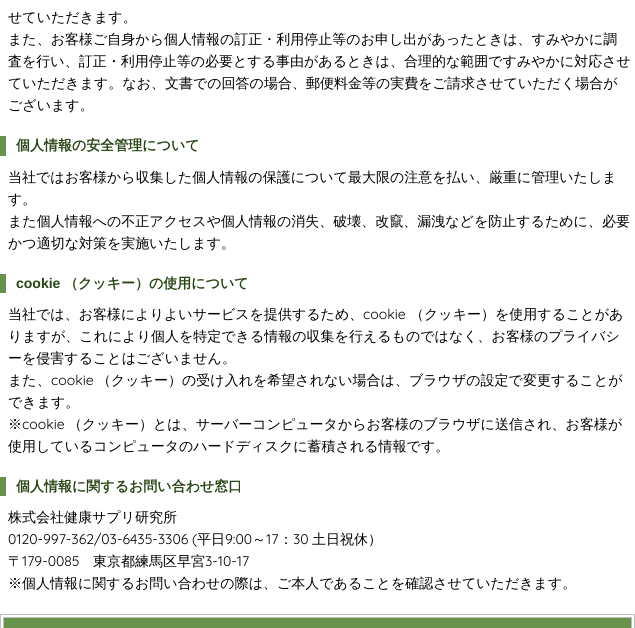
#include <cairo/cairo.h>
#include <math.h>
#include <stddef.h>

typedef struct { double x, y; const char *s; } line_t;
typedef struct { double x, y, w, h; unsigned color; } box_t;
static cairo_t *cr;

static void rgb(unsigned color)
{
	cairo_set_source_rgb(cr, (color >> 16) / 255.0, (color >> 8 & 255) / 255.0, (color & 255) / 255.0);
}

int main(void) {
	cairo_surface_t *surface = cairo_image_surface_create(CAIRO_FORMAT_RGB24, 635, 628);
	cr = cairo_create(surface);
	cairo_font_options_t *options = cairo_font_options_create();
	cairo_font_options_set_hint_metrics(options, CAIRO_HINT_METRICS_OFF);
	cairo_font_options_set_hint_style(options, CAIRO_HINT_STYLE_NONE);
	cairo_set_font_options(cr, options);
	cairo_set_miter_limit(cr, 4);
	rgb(0xffffff);
	cairo_paint(cr);
	{
		static const box_t items[] = {
			{0, 136, 6, 20, 0x68934c},
			{0, 274, 6, 19, 0x68934c},
			{0, 477, 6, 19, 0x68934c},
		};
		for (size_t i = 0; i < sizeof items / sizeof *items; i++) {
			rgb(items[i].color);
			cairo_rectangle(cr, items[i].x, items[i].y, items[i].w, items[i].h);
			cairo_fill(cr);
		}
	}
	cairo_rectangle(cr, 0.5, 614.5, 634, 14);
	rgb(0xc0c0c0);
	cairo_set_line_width(cr, 1);
	cairo_stroke(cr);
	rgb(0x68934c);
	cairo_rectangle(cr, 3.5, 617.5, 628, 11);
	cairo_fill_preserve(cr);
	rgb(0xc0c0c0);
	cairo_stroke(cr);
	cairo_select_font_face(cr, "WenQuanYi Zen Hei Medium", CAIRO_FONT_SLANT_NORMAL, CAIRO_FONT_WEIGHT_NORMAL);
	cairo_set_font_size(cr, 14);
	rgb(0x000000);
	{
		static const line_t items[] = {
			{8, 22, "せていただきます。"},
			{8, 44, "また、お客様ご自身から個人情報の訂正・利用停止等のお申し出があったときは、すみやかに調"},
			{8, 66, "査を行い、訂正・利用停止等の必要とする事由があるときは、合理的な範囲ですみやかに対応させ"},
			{8, 88, "ていただきます。なお、文書での回答の場合、郵便料金等の実費をご請求させていただく場合が"},
			{8, 110, "ございます。"},
		};
		for (size_t i = 0; i < sizeof items / sizeof *items; i++) {
			cairo_move_to(cr, items[i].x, items[i].y);
			cairo_show_text(cr, items[i].s);
		}
	}
	cairo_select_font_face(cr, "WenQuanYi Zen Hei", CAIRO_FONT_SLANT_NORMAL, CAIRO_FONT_WEIGHT_BOLD);
	rgb(0x274413);
	cairo_move_to(cr, 16, 150);
	cairo_show_text(cr, "個人情報の安全管理について");
	cairo_select_font_face(cr, "WenQuanYi Zen Hei Medium", CAIRO_FONT_SLANT_NORMAL, CAIRO_FONT_WEIGHT_NORMAL);
	rgb(0x000000);
	{
		static const line_t items[] = {
			{8, 182, "当社ではお客様から収集した個人情報の保護について最大限の注意を払い、厳重に管理いたしま"},
			{8, 204, "す。"},
			{8, 226, "また個人情報への不正アクセスや個人情報の消失、破壊、改竄、漏洩などを防止するために、必要"},
			{8, 248, "かつ適切な対策を実施いたします。"},
		};
		for (size_t i = 0; i < sizeof items / sizeof *items; i++) {
			cairo_move_to(cr, items[i].x, items[i].y);
			cairo_show_text(cr, items[i].s);
		}
	}
	cairo_select_font_face(cr, "Liberation Sans", CAIRO_FONT_SLANT_NORMAL, CAIRO_FONT_WEIGHT_BOLD);
	rgb(0x274413);
	cairo_move_to(cr, 16, 288);
	cairo_show_text(cr, "cookie");
	cairo_select_font_face(cr, "WenQuanYi Zen Hei", CAIRO_FONT_SLANT_NORMAL, CAIRO_FONT_WEIGHT_BOLD);
	cairo_move_to(cr, 64, 288);
	cairo_show_text(cr, "（クッキー）の使用について");
	cairo_select_font_face(cr, "WenQuanYi Zen Hei Medium", CAIRO_FONT_SLANT_NORMAL, CAIRO_FONT_WEIGHT_NORMAL);
	rgb(0x000000);
	cairo_move_to(cr, 8, 319);
	cairo_show_text(cr, "当社では、お客様によりよいサービスを提供するため、");
	cairo_select_font_face(cr, "Quicksand", CAIRO_FONT_SLANT_NORMAL, CAIRO_FONT_WEIGHT_NORMAL);
	cairo_move_to(cr, 363, 319);
	cairo_show_text(cr, "cookie");
	cairo_select_font_face(cr, "WenQuanYi Zen Hei Medium", CAIRO_FONT_SLANT_NORMAL, CAIRO_FONT_WEIGHT_NORMAL);
	{
		static const line_t items[] = {
			{410, 319, "（クッキー）を使用することがあ"},
			{8, 341, "りますが、これにより個人を特定できる情報の収集を行えるものではなく、お客様のプライバシ"},
			{8, 363, "ーを侵害することはございません。"},
			{8, 385, "また、"},
		};
		for (size_t i = 0; i < sizeof items / sizeof *items; i++) {
			cairo_move_to(cr, items[i].x, items[i].y);
			cairo_show_text(cr, items[i].s);
		}
	}
	cairo_select_font_face(cr, "Quicksand", CAIRO_FONT_SLANT_NORMAL, CAIRO_FONT_WEIGHT_NORMAL);
	cairo_move_to(cr, 51, 385);
	cairo_show_text(cr, "cookie");
	cairo_select_font_face(cr, "WenQuanYi Zen Hei Medium", CAIRO_FONT_SLANT_NORMAL, CAIRO_FONT_WEIGHT_NORMAL);
	{
		static const line_t items[] = {
			{97, 385, "（クッキー）の受け入れを希望されない場合は、ブラウザの設定で変更することが"},
			{8, 407, "できます。"},
			{8, 429, "※"},
		};
		for (size_t i = 0; i < sizeof items / sizeof *items; i++) {
			cairo_move_to(cr, items[i].x, items[i].y);
			cairo_show_text(cr, items[i].s);
		}
	}
	cairo_select_font_face(cr, "Quicksand", CAIRO_FONT_SLANT_NORMAL, CAIRO_FONT_WEIGHT_NORMAL);
	cairo_move_to(cr, 22, 429);
	cairo_show_text(cr, "cookie");
	cairo_select_font_face(cr, "WenQuanYi Zen Hei Medium", CAIRO_FONT_SLANT_NORMAL, CAIRO_FONT_WEIGHT_NORMAL);
	cairo_move_to(cr, 68, 429);
	cairo_show_text(cr, "（クッキー）とは、サーバーコンピュータからお客様のブラウザに送信され、お客様が");
	cairo_move_to(cr, 8, 451);
	cairo_show_text(cr, "使用しているコンピュータのハードディスクに蓄積される情報です。");
	cairo_select_font_face(cr, "WenQuanYi Zen Hei", CAIRO_FONT_SLANT_NORMAL, CAIRO_FONT_WEIGHT_BOLD);
	rgb(0x274413);
	cairo_move_to(cr, 16, 491);
	cairo_show_text(cr, "個人情報に関するお問い合わせ窓口");
	cairo_select_font_face(cr, "WenQuanYi Zen Hei Medium", CAIRO_FONT_SLANT_NORMAL, CAIRO_FONT_WEIGHT_NORMAL);
	rgb(0x000000);
	cairo_move_to(cr, 8, 522);
	cairo_show_text(cr, "株式会社健康サプリ研究所");
	cairo_select_font_face(cr, "Quicksand", CAIRO_FONT_SLANT_NORMAL, CAIRO_FONT_WEIGHT_NORMAL);
	cairo_move_to(cr, 8, 544);
	cairo_show_text(cr, "0120-997-362/03-6435-3306 (");
	cairo_select_font_face(cr, "WenQuanYi Zen Hei Medium", CAIRO_FONT_SLANT_NORMAL, CAIRO_FONT_WEIGHT_NORMAL);
	cairo_move_to(cr, 197, 544);
	cairo_show_text(cr, "平日");
	cairo_select_font_face(cr, "Quicksand", CAIRO_FONT_SLANT_NORMAL, CAIRO_FONT_WEIGHT_NORMAL);
	cairo_move_to(cr, 225, 544);
	cairo_show_text(cr, "9:00");
	cairo_select_font_face(cr, "WenQuanYi Zen Hei Medium", CAIRO_FONT_SLANT_NORMAL, CAIRO_FONT_WEIGHT_NORMAL);
	cairo_move_to(cr, 252, 544);
	cairo_show_text(cr, "～");
	cairo_select_font_face(cr, "Quicksand", CAIRO_FONT_SLANT_NORMAL, CAIRO_FONT_WEIGHT_NORMAL);
	cairo_move_to(cr, 266, 544);
	cairo_show_text(cr, "17");
	cairo_select_font_face(cr, "WenQuanYi Zen Hei Medium", CAIRO_FONT_SLANT_NORMAL, CAIRO_FONT_WEIGHT_NORMAL);
	cairo_move_to(cr, 279, 544);
	cairo_show_text(cr, "：");
	cairo_select_font_face(cr, "Quicksand", CAIRO_FONT_SLANT_NORMAL, CAIRO_FONT_WEIGHT_NORMAL);
	cairo_move_to(cr, 293, 544);
	cairo_show_text(cr, "30");
	cairo_select_font_face(cr, "WenQuanYi Zen Hei Medium", CAIRO_FONT_SLANT_NORMAL, CAIRO_FONT_WEIGHT_NORMAL);
	cairo_move_to(cr, 312, 544);
	cairo_show_text(cr, "土日祝休）");
	cairo_move_to(cr, 8, 566);
	cairo_show_text(cr, "〒");
	cairo_select_font_face(cr, "Quicksand", CAIRO_FONT_SLANT_NORMAL, CAIRO_FONT_WEIGHT_NORMAL);
	cairo_move_to(cr, 22, 566);
	cairo_show_text(cr, "179-0085");
	cairo_select_font_face(cr, "WenQuanYi Zen Hei Medium", CAIRO_FONT_SLANT_NORMAL, CAIRO_FONT_WEIGHT_NORMAL);
	cairo_move_to(cr, 93, 566);
	cairo_show_text(cr, "東京都練馬区早宮");
	cairo_select_font_face(cr, "Quicksand", CAIRO_FONT_SLANT_NORMAL, CAIRO_FONT_WEIGHT_NORMAL);
	cairo_move_to(cr, 205, 566);
	cairo_show_text(cr, "3-10-17");
	cairo_select_font_face(cr, "WenQuanYi Zen Hei Medium", CAIRO_FONT_SLANT_NORMAL, CAIRO_FONT_WEIGHT_NORMAL);
	cairo_move_to(cr, 8, 588);
	cairo_show_text(cr, "※個人情報に関するお問い合わせの際は、ご本人であることを確認させていただきます。");
	cairo_surface_write_to_png(surface, "page.png");
	cairo_font_options_destroy(options);
	cairo_destroy(cr);
	cairo_surface_destroy(surface);
	return 0;
}
